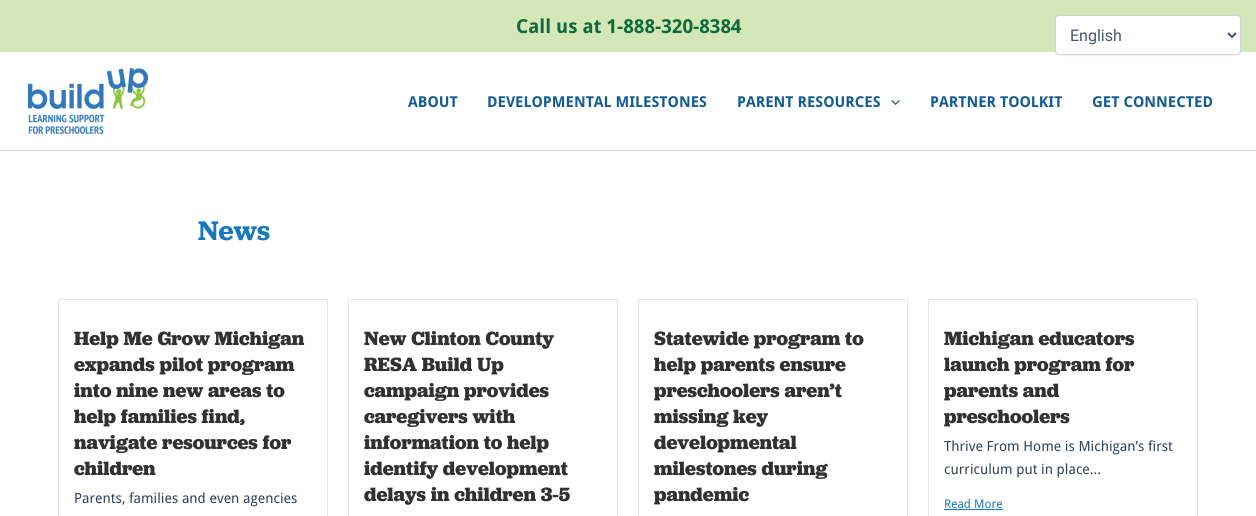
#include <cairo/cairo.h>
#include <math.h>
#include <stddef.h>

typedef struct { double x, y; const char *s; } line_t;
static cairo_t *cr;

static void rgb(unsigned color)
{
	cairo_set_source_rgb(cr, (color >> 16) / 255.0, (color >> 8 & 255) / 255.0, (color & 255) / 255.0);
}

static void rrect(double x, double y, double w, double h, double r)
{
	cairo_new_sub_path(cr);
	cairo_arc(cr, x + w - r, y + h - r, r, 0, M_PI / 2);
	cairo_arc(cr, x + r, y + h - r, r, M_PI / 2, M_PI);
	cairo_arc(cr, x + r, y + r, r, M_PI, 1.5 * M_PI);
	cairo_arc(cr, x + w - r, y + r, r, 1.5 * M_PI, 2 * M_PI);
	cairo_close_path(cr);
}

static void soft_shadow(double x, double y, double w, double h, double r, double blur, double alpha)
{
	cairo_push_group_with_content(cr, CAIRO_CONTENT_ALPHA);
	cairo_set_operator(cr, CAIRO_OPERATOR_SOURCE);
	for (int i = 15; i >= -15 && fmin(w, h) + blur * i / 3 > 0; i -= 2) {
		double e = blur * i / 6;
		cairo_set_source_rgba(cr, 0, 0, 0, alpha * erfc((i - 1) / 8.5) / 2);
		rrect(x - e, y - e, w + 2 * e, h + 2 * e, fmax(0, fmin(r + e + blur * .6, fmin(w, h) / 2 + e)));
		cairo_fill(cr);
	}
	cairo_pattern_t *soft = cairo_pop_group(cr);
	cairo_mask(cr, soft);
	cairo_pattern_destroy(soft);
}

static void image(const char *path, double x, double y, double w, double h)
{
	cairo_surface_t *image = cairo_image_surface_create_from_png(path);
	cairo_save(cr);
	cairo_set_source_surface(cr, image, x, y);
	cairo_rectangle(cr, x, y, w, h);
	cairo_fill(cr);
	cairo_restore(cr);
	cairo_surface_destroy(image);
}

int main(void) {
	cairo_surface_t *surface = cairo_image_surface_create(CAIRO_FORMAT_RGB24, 1256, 516);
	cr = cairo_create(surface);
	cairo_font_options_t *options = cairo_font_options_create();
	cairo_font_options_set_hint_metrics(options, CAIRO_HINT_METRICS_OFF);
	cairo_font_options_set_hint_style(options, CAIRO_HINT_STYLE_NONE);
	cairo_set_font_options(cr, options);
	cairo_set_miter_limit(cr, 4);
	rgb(0xffffff);
	cairo_paint(cr);
	rgb(0xd3e7b9);
	cairo_rectangle(cr, 0, 0, 1256, 52);
	cairo_fill(cr);
	rgb(0x000000);
	soft_shadow(1055, 16, 186, 40, 4, 1, 0.05);
	rgb(0xffffff);
	rrect(1055.5, 15.5, 185, 39, 3.5);
	cairo_fill_preserve(cr);
	rgb(0xd1d5db);
	cairo_set_line_width(cr, 1);
	cairo_stroke(cr);
	cairo_new_path(cr);
	cairo_move_to(cr, 1228, 33);
	cairo_line_to(cr, 1232, 37);
	cairo_line_to(cr, 1236, 33);
	rgb(0x475569);
	cairo_set_line_width(cr, 2);
	cairo_stroke(cr);
	rgb(0xd1d5db);
	cairo_rectangle(cr, 0, 150, 1256, 1);
	cairo_fill(cr);
	image("img/1.png", 28, 68, 120, 66);
	image("img/2.png", 891, 100, 9, 5);
	cairo_rectangle(cr, 58.5, 299.5, 269, 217);
	rgb(0xe6e6e6);
	cairo_set_line_width(cr, 1);
	cairo_stroke(cr);
	cairo_rectangle(cr, 348.5, 299.5, 269, 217);
	cairo_stroke(cr);
	cairo_rectangle(cr, 638.5, 299.5, 269, 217);
	cairo_stroke(cr);
	cairo_rectangle(cr, 928.5, 299.5, 269, 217);
	cairo_stroke(cr);
	rgb(0x1778bd);
	cairo_rectangle(cr, 944, 509, 59, 1);
	cairo_fill(cr);
	cairo_select_font_face(cr, "Droid Sans", CAIRO_FONT_SLANT_NORMAL, CAIRO_FONT_WEIGHT_BOLD);
	cairo_set_font_size(cr, 19.25);
	rgb(0x0e6a38);
	cairo_move_to(cr, 516, 33);
	cairo_show_text(cr, "Call us at 1-888-320-8384");
	cairo_select_font_face(cr, "Roboto", CAIRO_FONT_SLANT_NORMAL, CAIRO_FONT_WEIGHT_NORMAL);
	cairo_set_font_size(cr, 16);
	rgb(0x475569);
	cairo_move_to(cr, 1070, 41);
	cairo_show_text(cr, "English");
	cairo_select_font_face(cr, "Droid Sans", CAIRO_FONT_SLANT_NORMAL, CAIRO_FONT_WEIGHT_BOLD);
	cairo_set_font_size(cr, 15);
	rgb(0x125c91);
	{
		static const line_t items[] = {
			{408, 107, "ABOUT"},
			{487, 107, "DEVELOPMENTAL MILESTONES"},
			{737, 107, "PARENT RESOURCES"},
			{930, 107, "PARTNER TOOLKIT"},
			{1092, 107, "GET CONNECTED"},
		};
		for (size_t i = 0; i < sizeof items / sizeof *items; i++) {
			cairo_move_to(cr, items[i].x, items[i].y);
			cairo_show_text(cr, items[i].s);
		}
	}
	cairo_select_font_face(cr, "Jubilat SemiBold", CAIRO_FONT_SLANT_NORMAL, CAIRO_FONT_WEIGHT_NORMAL);
	cairo_set_font_size(cr, 28);
	rgb(0x1778bd);
	cairo_move_to(cr, 198, 240);
	cairo_show_text(cr, "News");
	cairo_select_font_face(cr, "Jubilat", CAIRO_FONT_SLANT_NORMAL, CAIRO_FONT_WEIGHT_BOLD);
	cairo_set_font_size(cr, 20);
	rgb(0x303133);
	{
		static const line_t items[] = {
			{74, 345, "Help Me Grow Michigan"},
			{74, 371, "expands pilot program"},
			{74, 397, "into nine new areas to"},
			{74, 423, "help families find,"},
			{74, 449, "navigate resources for"},
			{74, 475, "children"},
		};
		for (size_t i = 0; i < sizeof items / sizeof *items; i++) {
			cairo_move_to(cr, items[i].x, items[i].y);
			cairo_show_text(cr, items[i].s);
		}
	}
	cairo_select_font_face(cr, "Droid Sans", CAIRO_FONT_SLANT_NORMAL, CAIRO_FONT_WEIGHT_NORMAL);
	cairo_set_font_size(cr, 14);
	rgb(0x334155);
	cairo_move_to(cr, 74, 503);
	cairo_show_text(cr, "Parents, families and even agencies");
	cairo_select_font_face(cr, "Jubilat", CAIRO_FONT_SLANT_NORMAL, CAIRO_FONT_WEIGHT_BOLD);
	cairo_set_font_size(cr, 20);
	rgb(0x303133);
	{
		static const line_t items[] = {
			{364, 345, "New Clinton County"},
			{364, 371, "RESA Build Up"},
			{364, 397, "campaign provides"},
			{364, 423, "caregivers with"},
			{364, 449, "information to help"},
			{364, 475, "identify development"},
			{364, 501, "delays in children 3-5"},
			{654, 345, "Statewide program to"},
			{654, 371, "help parents ensure"},
			{654, 397, "preschoolers aren’t"},
			{654, 423, "missing key"},
			{654, 449, "developmental"},
			{654, 475, "milestones during"},
			{654, 501, "pandemic"},
			{944, 345, "Michigan educators"},
			{944, 371, "launch program for"},
			{944, 397, "parents and"},
			{944, 423, "preschoolers"},
		};
		for (size_t i = 0; i < sizeof items / sizeof *items; i++) {
			cairo_move_to(cr, items[i].x, items[i].y);
			cairo_show_text(cr, items[i].s);
		}
	}
	cairo_select_font_face(cr, "Droid Sans", CAIRO_FONT_SLANT_NORMAL, CAIRO_FONT_WEIGHT_NORMAL);
	cairo_set_font_size(cr, 14);
	rgb(0x334155);
	cairo_move_to(cr, 944, 451);
	cairo_show_text(cr, "Thrive From Home is Michigan’s first");
	cairo_move_to(cr, 944, 474);
	cairo_show_text(cr, "curriculum put in place...");
	cairo_set_font_size(cr, 12);
	rgb(0x1778bd);
	cairo_move_to(cr, 944, 508);
	cairo_show_text(cr, "Read More");
	cairo_surface_write_to_png(surface, "page.png");
	cairo_font_options_destroy(options);
	cairo_destroy(cr);
	cairo_surface_destroy(surface);
	return 0;
}
